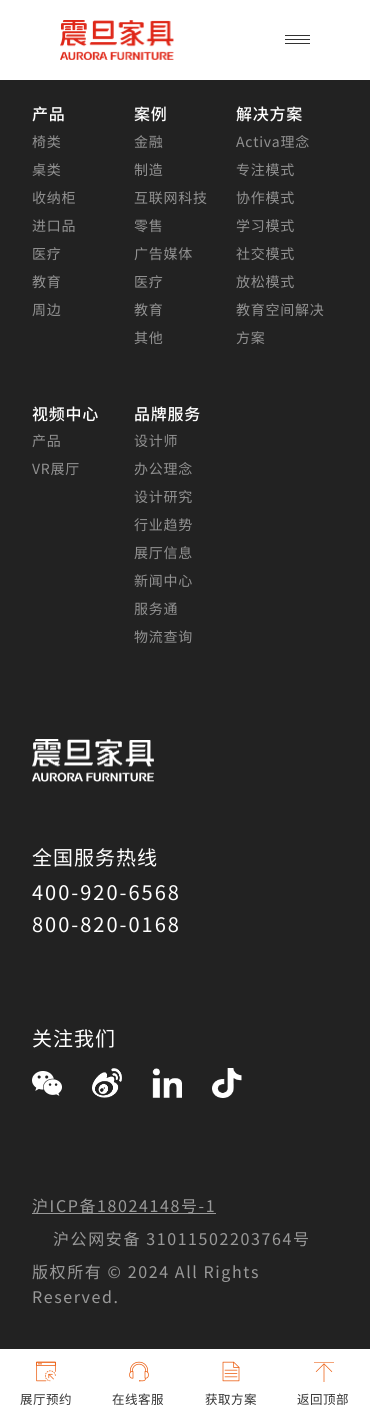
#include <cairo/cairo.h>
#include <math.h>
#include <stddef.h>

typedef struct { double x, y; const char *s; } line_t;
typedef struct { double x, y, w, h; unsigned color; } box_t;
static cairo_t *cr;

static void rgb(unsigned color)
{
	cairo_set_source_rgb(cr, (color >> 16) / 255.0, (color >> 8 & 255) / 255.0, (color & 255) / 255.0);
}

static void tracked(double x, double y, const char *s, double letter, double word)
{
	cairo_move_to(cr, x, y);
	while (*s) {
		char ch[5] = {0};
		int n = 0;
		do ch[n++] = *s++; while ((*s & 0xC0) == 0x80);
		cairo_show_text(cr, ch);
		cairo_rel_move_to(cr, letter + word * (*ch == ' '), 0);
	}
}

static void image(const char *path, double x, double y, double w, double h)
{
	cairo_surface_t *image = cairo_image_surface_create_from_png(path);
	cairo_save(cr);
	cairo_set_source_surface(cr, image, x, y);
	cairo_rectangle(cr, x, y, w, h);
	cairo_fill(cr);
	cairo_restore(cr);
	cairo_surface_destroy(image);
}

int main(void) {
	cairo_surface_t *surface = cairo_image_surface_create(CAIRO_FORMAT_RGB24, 370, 1414);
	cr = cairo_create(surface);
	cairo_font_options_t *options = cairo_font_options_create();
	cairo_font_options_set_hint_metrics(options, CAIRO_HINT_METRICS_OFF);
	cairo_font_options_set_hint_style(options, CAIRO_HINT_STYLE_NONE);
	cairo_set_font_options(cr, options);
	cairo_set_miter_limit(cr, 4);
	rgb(0x222222);
	cairo_paint(cr);
	rgb(0xffffff);
	cairo_rectangle(cr, 0, 0, 370, 80);
	cairo_fill(cr);
	image("img/1.png", 60, 20, 114, 40);
	{
		static const box_t items[] = {
			{285, 35, 25, 1, 0x333333},
			{285, 39, 25, 1, 0x333333},
			{285, 43, 25, 1, 0x333333},
		};
		for (size_t i = 0; i < sizeof items / sizeof *items; i++) {
			rgb(items[i].color);
			cairo_rectangle(cr, items[i].x, items[i].y, items[i].w, items[i].h);
			cairo_fill(cr);
		}
	}
	image("img/2.png", 32, 739, 122, 43);
	image("img/3.png", 32, 1071, 30, 25);
	image("img/4.png", 92, 1068, 30, 30);
	image("img/5.png", 152, 1068, 30, 30);
	image("img/6.png", 212, 1068, 30, 30);
	rgb(0x999999);
	cairo_rectangle(cr, 32, 1213, 184, 1);
	cairo_fill(cr);
	rgb(0xffffff);
	cairo_rectangle(cr, 0, 1349, 370, 65);
	cairo_fill(cr);
	image("img/7.png", 36, 1361, 20, 21);
	image("img/8.png", 129, 1361, 20, 21);
	image("img/9.png", 222, 1361, 18, 21);
	image("img/10.png", 314, 1362, 20, 20);
	cairo_select_font_face(cr, "Noto Sans SC Medium", CAIRO_FONT_SLANT_NORMAL, CAIRO_FONT_WEIGHT_NORMAL);
	cairo_set_font_size(cr, 16);
	tracked(32, 120, "产品", 0.75, 0);
	cairo_select_font_face(cr, "Noto Sans SC", CAIRO_FONT_SLANT_NORMAL, CAIRO_FONT_WEIGHT_NORMAL);
	cairo_set_font_size(cr, 14);
	rgb(0x919191);
	{
		static const line_t items[] = {
			{32, 147, "椅类"},
			{32, 175, "桌类"},
			{32, 203, "收纳柜"},
			{32, 231, "进口品"},
			{32, 259, "医疗"},
			{32, 287, "教育"},
			{32, 315, "周边"},
		};
		for (size_t i = 0; i < sizeof items / sizeof *items; i++) {
			tracked(items[i].x, items[i].y, items[i].s, 0.75, 0);
		}
	}
	cairo_select_font_face(cr, "Noto Sans SC Medium", CAIRO_FONT_SLANT_NORMAL, CAIRO_FONT_WEIGHT_NORMAL);
	cairo_set_font_size(cr, 16);
	rgb(0xffffff);
	tracked(134, 120, "案例", 0.75, 0);
	cairo_select_font_face(cr, "Noto Sans SC", CAIRO_FONT_SLANT_NORMAL, CAIRO_FONT_WEIGHT_NORMAL);
	cairo_set_font_size(cr, 14);
	rgb(0x919191);
	{
		static const line_t items[] = {
			{134, 147, "金融"},
			{134, 175, "制造"},
			{134, 203, "互联网科技"},
			{134, 231, "零售"},
			{134, 259, "广告媒体"},
			{134, 287, "医疗"},
			{134, 315, "教育"},
			{134, 343, "其他"},
		};
		for (size_t i = 0; i < sizeof items / sizeof *items; i++) {
			tracked(items[i].x, items[i].y, items[i].s, 0.75, 0);
		}
	}
	cairo_select_font_face(cr, "Noto Sans SC Medium", CAIRO_FONT_SLANT_NORMAL, CAIRO_FONT_WEIGHT_NORMAL);
	cairo_set_font_size(cr, 16);
	rgb(0xffffff);
	tracked(236, 120, "解决方案", 0.75, 0);
	cairo_select_font_face(cr, "Noto Sans SC", CAIRO_FONT_SLANT_NORMAL, CAIRO_FONT_WEIGHT_NORMAL);
	cairo_set_font_size(cr, 14);
	rgb(0x919191);
	{
		static const line_t items[] = {
			{236, 147, "Activa理念"},
			{236, 175, "专注模式"},
			{236, 203, "协作模式"},
			{236, 231, "学习模式"},
			{236, 259, "社交模式"},
			{236, 287, "放松模式"},
			{236, 315, "教育空间解决"},
			{236, 343, "方案"},
		};
		for (size_t i = 0; i < sizeof items / sizeof *items; i++) {
			tracked(items[i].x, items[i].y, items[i].s, 0.75, 0);
		}
	}
	cairo_select_font_face(cr, "Noto Sans SC Medium", CAIRO_FONT_SLANT_NORMAL, CAIRO_FONT_WEIGHT_NORMAL);
	cairo_set_font_size(cr, 16);
	rgb(0xffffff);
	tracked(32, 420, "视频中心", 0.75, 0);
	cairo_select_font_face(cr, "Noto Sans SC", CAIRO_FONT_SLANT_NORMAL, CAIRO_FONT_WEIGHT_NORMAL);
	cairo_set_font_size(cr, 14);
	rgb(0x919191);
	tracked(32, 446, "产品", 0.75, 0);
	tracked(32, 474, "VR展厅", 0.75, 0);
	cairo_select_font_face(cr, "Noto Sans SC Medium", CAIRO_FONT_SLANT_NORMAL, CAIRO_FONT_WEIGHT_NORMAL);
	cairo_set_font_size(cr, 16);
	rgb(0xffffff);
	tracked(134, 420, "品牌服务", 0.75, 0);
	cairo_select_font_face(cr, "Noto Sans SC", CAIRO_FONT_SLANT_NORMAL, CAIRO_FONT_WEIGHT_NORMAL);
	cairo_set_font_size(cr, 14);
	rgb(0x919191);
	{
		static const line_t items[] = {
			{134, 446, "设计师"},
			{134, 474, "办公理念"},
			{134, 502, "设计研究"},
			{134, 530, "行业趋势"},
			{134, 558, "展厅信息"},
			{134, 586, "新闻中心"},
			{134, 614, "服务通"},
			{134, 642, "物流查询"},
		};
		for (size_t i = 0; i < sizeof items / sizeof *items; i++) {
			tracked(items[i].x, items[i].y, items[i].s, 0.75, 0);
		}
	}
	cairo_set_font_size(cr, 20);
	rgb(0xffffff);
	tracked(32, 865, "全国服务热线", 1, 0);
	tracked(32, 900, "400-920-6568", 2, 0);
	tracked(32, 932, "800-820-0168", 2, 0);
	tracked(32, 1046, "关注我们", 1, 0);
	cairo_set_font_size(cr, 16);
	rgb(0x999999);
	{
		static const line_t items[] = {
			{32, 1212, "沪ICP备18024148号-1"},
			{53, 1245, "沪公网安备 31011502203764号"},
			{32, 1278, "版权所有 © 2024 All Rights"},
			{32, 1303, "Reserved."},
		};
		for (size_t i = 0; i < sizeof items / sizeof *items; i++) {
			tracked(items[i].x, items[i].y, items[i].s, 1.6, 0);
		}
	}
	cairo_set_font_size(cr, 12.5);
	rgb(0x333333);
	{
		static const line_t items[] = {
			{20, 1404, "展厅预约"},
			{112, 1404, "在线客服"},
			{205, 1404, "获取方案"},
			{297, 1404, "返回顶部"},
		};
		for (size_t i = 0; i < sizeof items / sizeof *items; i++) {
			tracked(items[i].x, items[i].y, items[i].s, 0.5, 0);
		}
	}
	cairo_surface_write_to_png(surface, "page.png");
	cairo_font_options_destroy(options);
	cairo_destroy(cr);
	cairo_surface_destroy(surface);
	return 0;
}
